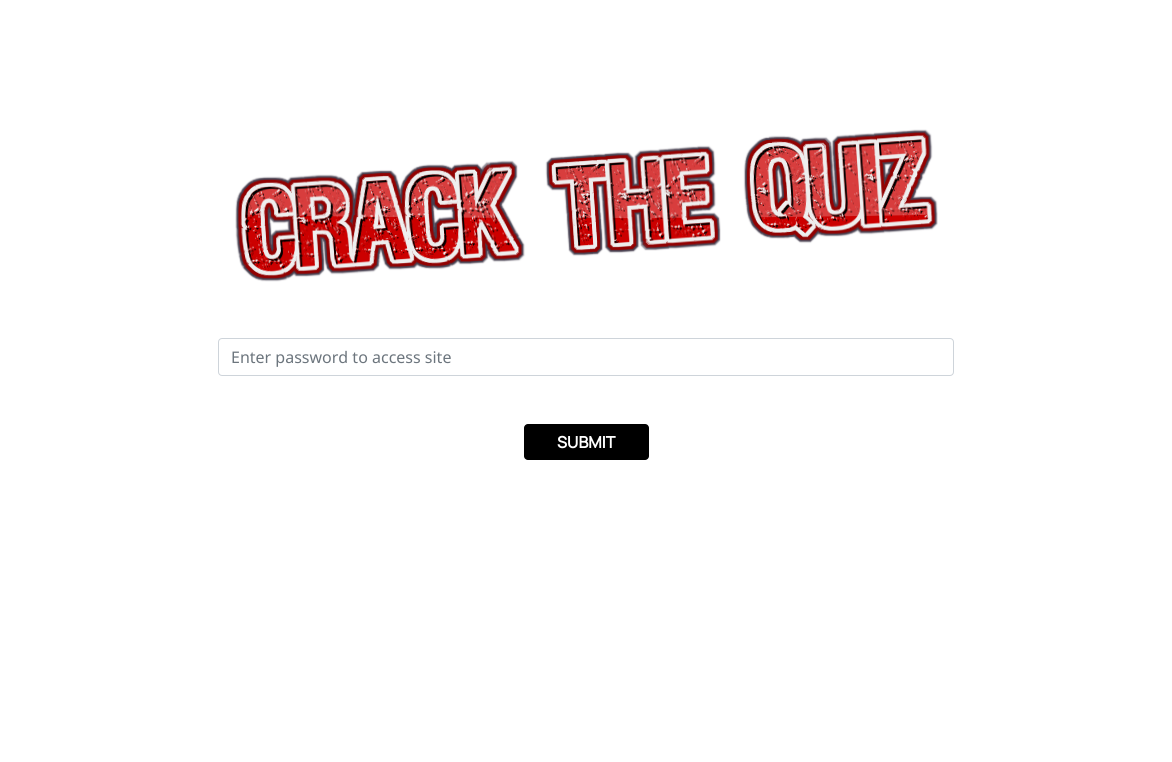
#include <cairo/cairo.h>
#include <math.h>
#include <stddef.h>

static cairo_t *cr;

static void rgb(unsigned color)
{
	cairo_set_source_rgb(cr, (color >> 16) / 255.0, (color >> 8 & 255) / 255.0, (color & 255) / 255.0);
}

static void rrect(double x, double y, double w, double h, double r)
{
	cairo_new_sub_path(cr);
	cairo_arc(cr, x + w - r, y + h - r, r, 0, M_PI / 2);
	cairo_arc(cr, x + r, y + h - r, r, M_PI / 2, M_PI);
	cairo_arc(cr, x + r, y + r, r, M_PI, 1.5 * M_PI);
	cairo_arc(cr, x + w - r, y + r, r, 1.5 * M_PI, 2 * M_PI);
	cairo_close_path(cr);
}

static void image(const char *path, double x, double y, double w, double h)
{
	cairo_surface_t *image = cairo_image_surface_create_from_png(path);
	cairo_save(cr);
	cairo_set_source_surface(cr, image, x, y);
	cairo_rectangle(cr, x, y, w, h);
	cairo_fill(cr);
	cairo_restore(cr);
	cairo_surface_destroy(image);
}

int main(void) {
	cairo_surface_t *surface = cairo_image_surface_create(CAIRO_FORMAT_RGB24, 1172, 762);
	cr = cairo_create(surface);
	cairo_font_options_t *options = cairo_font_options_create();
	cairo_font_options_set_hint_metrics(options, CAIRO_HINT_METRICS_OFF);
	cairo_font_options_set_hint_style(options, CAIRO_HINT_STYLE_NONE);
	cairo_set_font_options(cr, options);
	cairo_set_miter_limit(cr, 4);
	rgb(0xffffff);
	cairo_paint(cr);
	image("img/1.png", 235, 129, 703, 153);
	rrect(218.5, 338.5, 735, 37, 3.5);
	rgb(0xced4da);
	cairo_set_line_width(cr, 1);
	cairo_stroke(cr);
	rgb(0x000000);
	rrect(524, 424, 125, 36, 4);
	cairo_fill(cr);
	cairo_select_font_face(cr, "Noto Sans", CAIRO_FONT_SLANT_NORMAL, CAIRO_FONT_WEIGHT_NORMAL);
	cairo_set_font_size(cr, 16);
	rgb(0x6c757d);
	cairo_move_to(cr, 231, 363);
	cairo_show_text(cr, "Enter password to access site");
	cairo_select_font_face(cr, "Manrope", CAIRO_FONT_SLANT_NORMAL, CAIRO_FONT_WEIGHT_BOLD);
	rgb(0xffffff);
	cairo_move_to(cr, 557, 448);
	cairo_show_text(cr, "SUBMIT");
	cairo_surface_write_to_png(surface, "page.png");
	cairo_font_options_destroy(options);
	cairo_destroy(cr);
	cairo_surface_destroy(surface);
	return 0;
}
